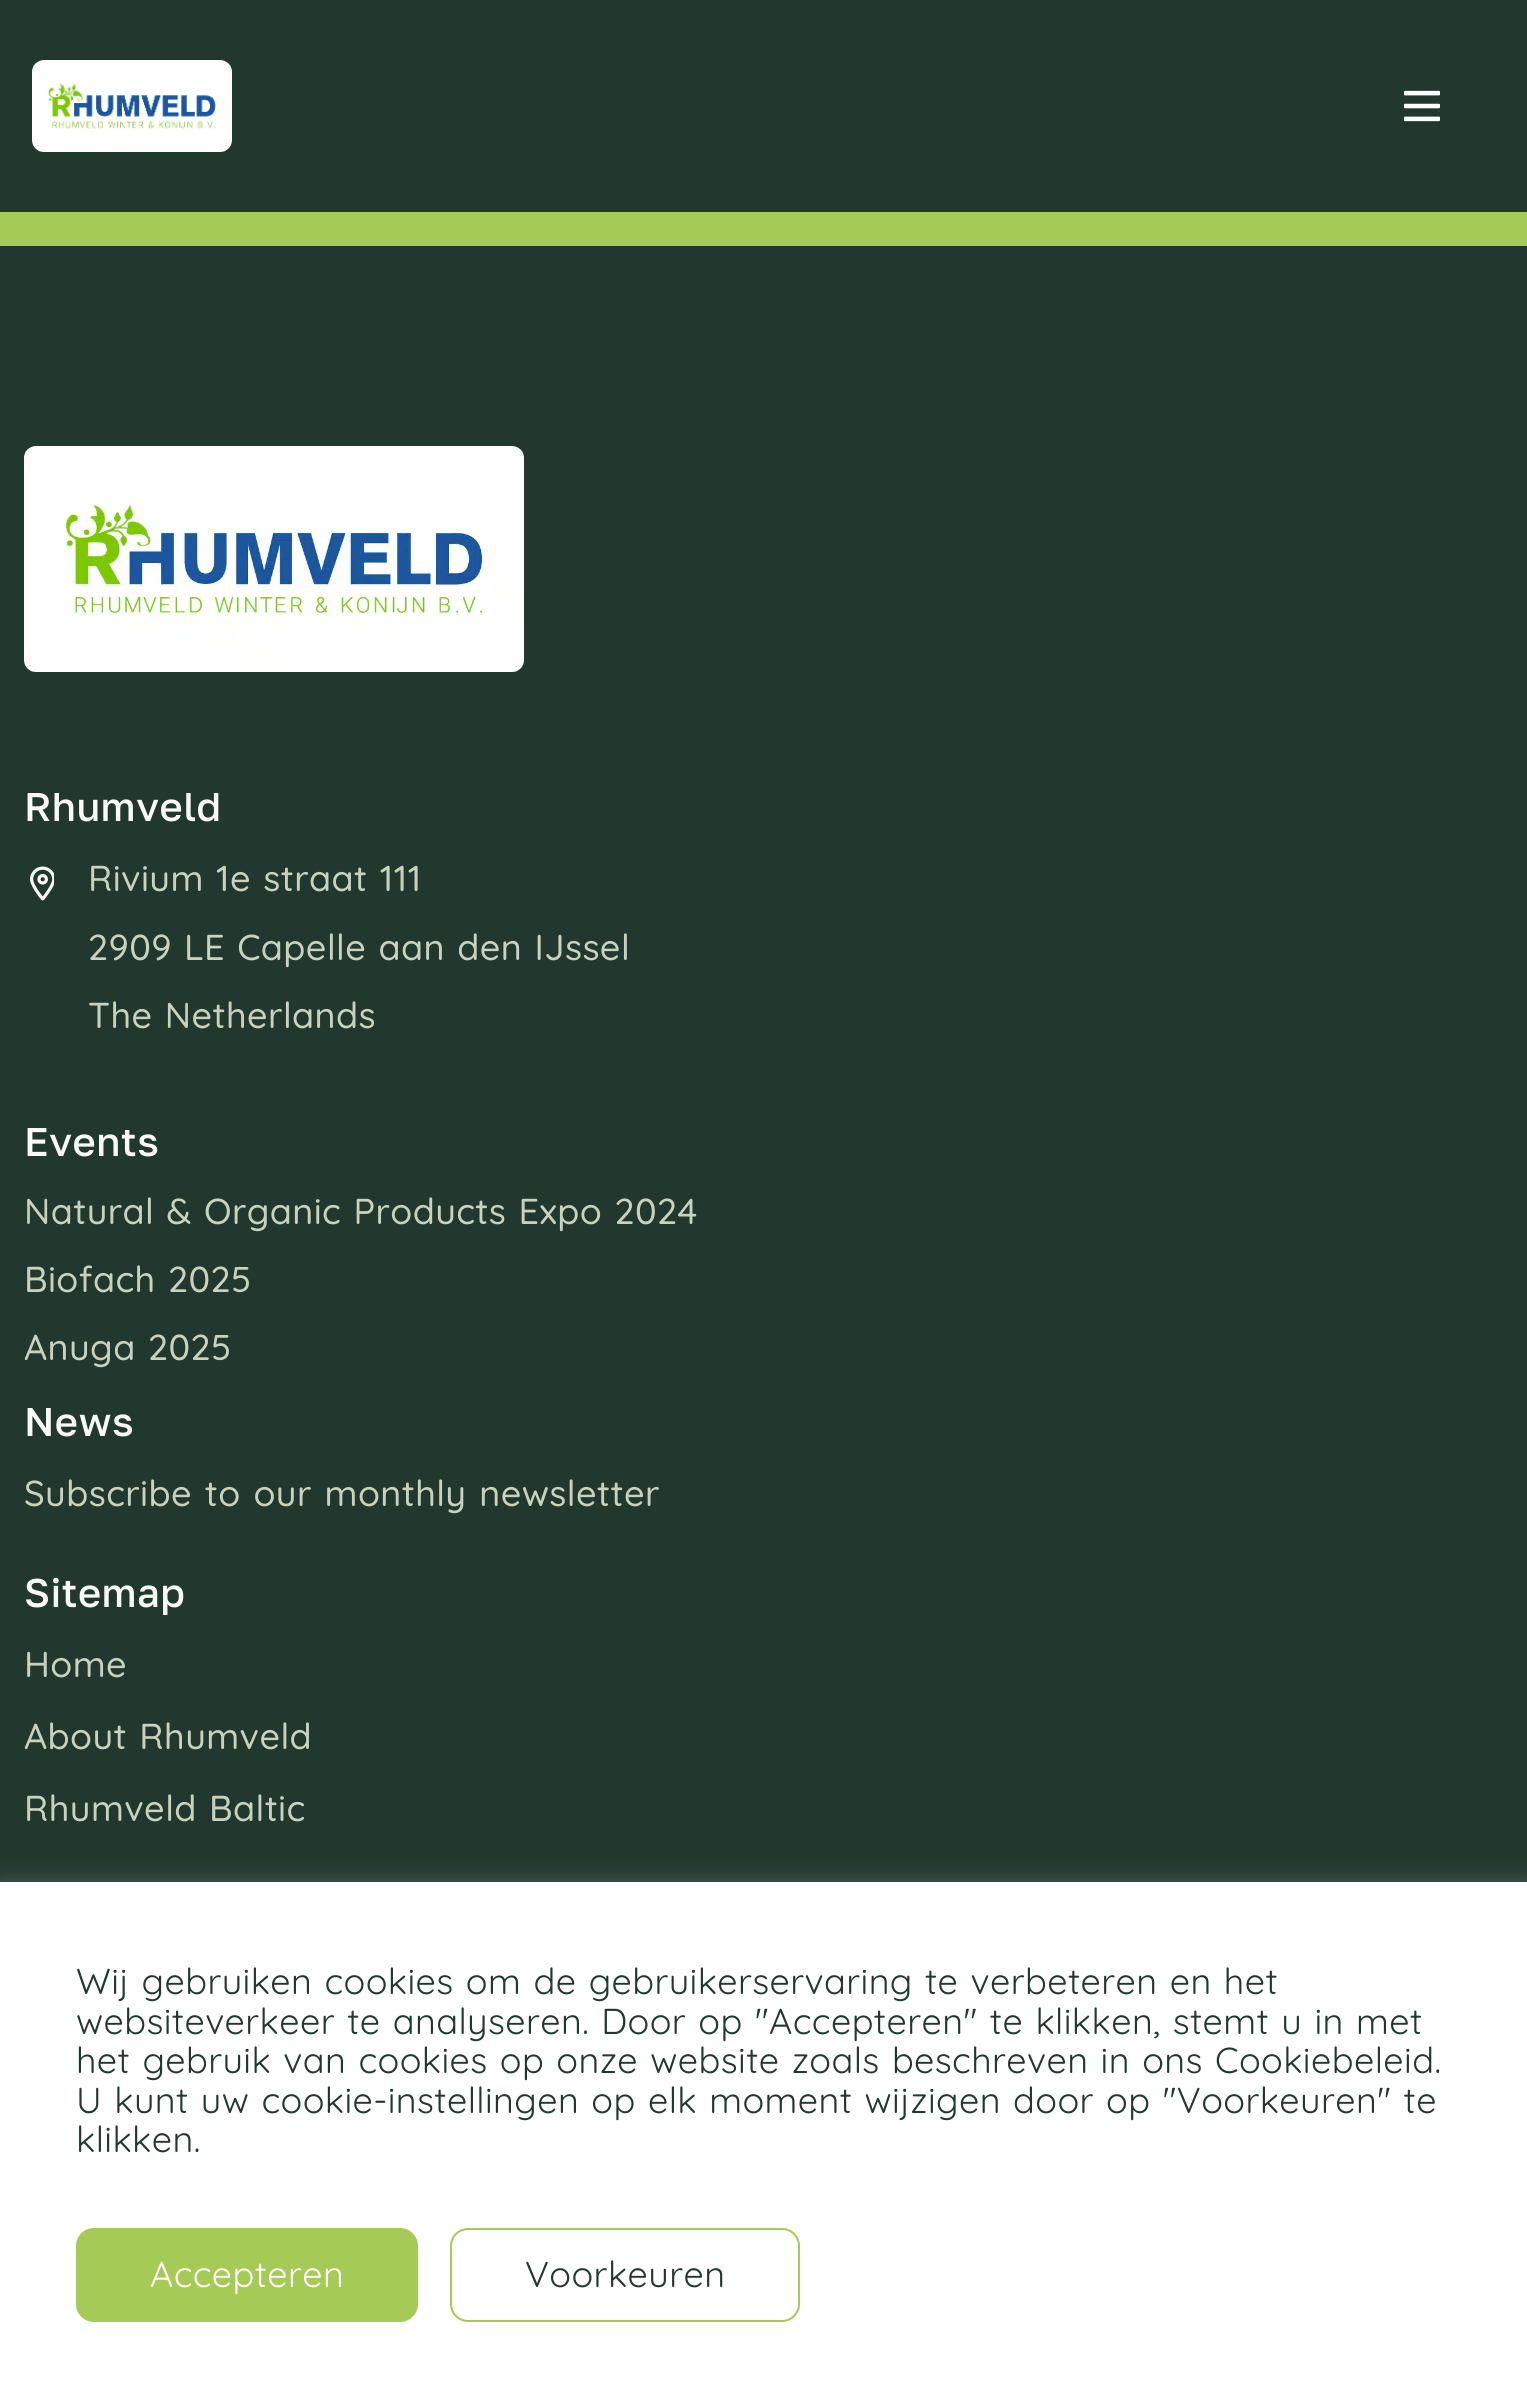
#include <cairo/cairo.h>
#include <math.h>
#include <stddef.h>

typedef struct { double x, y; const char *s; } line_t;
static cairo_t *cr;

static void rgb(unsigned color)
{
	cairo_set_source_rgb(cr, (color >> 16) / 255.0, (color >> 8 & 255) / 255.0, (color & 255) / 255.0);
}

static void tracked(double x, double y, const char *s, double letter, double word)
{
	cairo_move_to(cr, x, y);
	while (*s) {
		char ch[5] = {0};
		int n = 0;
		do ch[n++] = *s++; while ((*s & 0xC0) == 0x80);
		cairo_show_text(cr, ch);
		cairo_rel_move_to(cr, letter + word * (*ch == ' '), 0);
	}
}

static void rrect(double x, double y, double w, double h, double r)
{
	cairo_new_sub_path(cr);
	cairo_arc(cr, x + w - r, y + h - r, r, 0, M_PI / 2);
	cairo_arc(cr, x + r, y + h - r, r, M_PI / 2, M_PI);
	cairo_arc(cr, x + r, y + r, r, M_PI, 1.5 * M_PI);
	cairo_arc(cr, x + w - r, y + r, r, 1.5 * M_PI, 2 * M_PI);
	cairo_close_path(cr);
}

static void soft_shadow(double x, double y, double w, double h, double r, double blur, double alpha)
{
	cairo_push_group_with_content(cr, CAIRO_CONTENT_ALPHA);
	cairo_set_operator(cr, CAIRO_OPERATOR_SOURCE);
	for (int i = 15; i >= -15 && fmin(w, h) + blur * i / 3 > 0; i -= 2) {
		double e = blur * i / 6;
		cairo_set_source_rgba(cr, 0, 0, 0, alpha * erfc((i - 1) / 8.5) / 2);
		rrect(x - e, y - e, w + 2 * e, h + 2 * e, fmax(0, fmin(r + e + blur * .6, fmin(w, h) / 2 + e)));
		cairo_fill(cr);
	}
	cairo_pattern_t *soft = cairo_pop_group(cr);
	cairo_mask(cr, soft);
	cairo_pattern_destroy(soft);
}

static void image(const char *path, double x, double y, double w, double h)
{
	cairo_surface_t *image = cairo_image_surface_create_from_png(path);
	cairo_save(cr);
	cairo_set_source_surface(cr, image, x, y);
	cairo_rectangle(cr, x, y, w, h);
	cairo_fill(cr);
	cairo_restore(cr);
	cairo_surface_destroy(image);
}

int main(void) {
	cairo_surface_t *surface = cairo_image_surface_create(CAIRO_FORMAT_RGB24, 1527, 2402);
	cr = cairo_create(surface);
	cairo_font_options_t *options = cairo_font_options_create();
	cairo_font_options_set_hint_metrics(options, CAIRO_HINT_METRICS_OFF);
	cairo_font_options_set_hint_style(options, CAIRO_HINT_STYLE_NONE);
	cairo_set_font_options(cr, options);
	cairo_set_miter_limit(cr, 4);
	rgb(0xa6ca56);
	cairo_paint(cr);
	rgb(0x22382f);
	cairo_rectangle(cr, 0, 0, 1527, 212);
	cairo_fill(cr);
	image("img/1.png", 32, 60, 200, 92);
	image("img/2.png", 1404, 90, 36, 32);
	cairo_rectangle(cr, 0, 246, 1527, 1636);
	cairo_fill(cr);
	image("img/3.png", 24, 446, 500, 226);
	image("img/4.png", 30, 866, 24, 35);
	rgb(0xacabab);
	soft_shadow(0, 1880, 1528, 520, 0, 10, 0.3);
	rgb(0xffffff);
	cairo_rectangle(cr, 0, 1882, 1527, 520);
	cairo_fill(cr);
	rgb(0xa6ca56);
	rrect(77, 2229, 340, 92, 17);
	cairo_fill_preserve(cr);
	cairo_stroke(cr);
	rrect(451, 2229, 348, 92, 17);
	cairo_stroke(cr);
	cairo_select_font_face(cr, "Golos Text Medium", CAIRO_FONT_SLANT_NORMAL, CAIRO_FONT_WEIGHT_NORMAL);
	cairo_set_font_size(cr, 40);
	rgb(0xf8faf6);
	tracked(24, 821, "Rhumveld", 0.4, 0);
	cairo_select_font_face(cr, "Quicksand Medium", CAIRO_FONT_SLANT_NORMAL, CAIRO_FONT_WEIGHT_NORMAL);
	cairo_set_font_size(cr, 36);
	rgb(0xc8d2bd);
	{
		static const line_t items[] = {
			{88, 891, "Rivium 1e straat 111"},
			{88, 960, "2909 LE Capelle aan den IJssel"},
			{88, 1028, "The Netherlands"},
		};
		for (size_t i = 0; i < sizeof items / sizeof *items; i++) {
			tracked(items[i].x, items[i].y, items[i].s, 0.4, 2);
		}
	}
	cairo_select_font_face(cr, "Golos Text Medium", CAIRO_FONT_SLANT_NORMAL, CAIRO_FONT_WEIGHT_NORMAL);
	cairo_set_font_size(cr, 40);
	rgb(0xf8faf6);
	tracked(24, 1156, "Events", 0.4, 0);
	cairo_select_font_face(cr, "Quicksand Medium", CAIRO_FONT_SLANT_NORMAL, CAIRO_FONT_WEIGHT_NORMAL);
	cairo_set_font_size(cr, 36);
	rgb(0xc8d2bd);
	{
		static const line_t items[] = {
			{24, 1224, "Natural & Organic Products Expo 2024"},
			{24, 1292, "Biofach 2025"},
			{24, 1360, "Anuga 2025"},
		};
		for (size_t i = 0; i < sizeof items / sizeof *items; i++) {
			tracked(items[i].x, items[i].y, items[i].s, 0.4, 2);
		}
	}
	cairo_select_font_face(cr, "Golos Text Medium", CAIRO_FONT_SLANT_NORMAL, CAIRO_FONT_WEIGHT_NORMAL);
	cairo_set_font_size(cr, 40);
	rgb(0xf8faf6);
	tracked(24, 1436, "News", 0.4, 0);
	cairo_select_font_face(cr, "Quicksand Medium", CAIRO_FONT_SLANT_NORMAL, CAIRO_FONT_WEIGHT_NORMAL);
	cairo_set_font_size(cr, 36);
	rgb(0xc8d2bd);
	tracked(24, 1506, "Subscribe to our monthly newsletter", 0.4, 2.5);
	cairo_select_font_face(cr, "Golos Text Medium", CAIRO_FONT_SLANT_NORMAL, CAIRO_FONT_WEIGHT_NORMAL);
	cairo_set_font_size(cr, 40);
	rgb(0xf8faf6);
	tracked(24, 1607, "Sitemap", 0.4, 0);
	cairo_select_font_face(cr, "Quicksand Medium", CAIRO_FONT_SLANT_NORMAL, CAIRO_FONT_WEIGHT_NORMAL);
	cairo_set_font_size(cr, 36);
	rgb(0xc8d2bd);
	tracked(24, 1677, "Home", 0.4, 0);
	tracked(24, 1749, "About Rhumveld", 0.4, 2);
	tracked(24, 1821, "Rhumveld Baltic", 0.4, 2);
	cairo_select_font_face(cr, "Quicksand", CAIRO_FONT_SLANT_NORMAL, CAIRO_FONT_WEIGHT_NORMAL);
	rgb(0x22382f);
	{
		static const line_t items[] = {
			{76, 1994, "Wij gebruiken cookies om de gebruikerservaring te verbeteren en het"},
			{76, 2034, "websiteverkeer te analyseren. Door op \"Accepteren\" te klikken, stemt u in met"},
			{76, 2073, "het gebruik van cookies op onze website zoals beschreven in ons Cookiebeleid."},
			{76, 2113, "U kunt uw cookie-instellingen op elk moment wijzigen door op \"Voorkeuren\" te"},
		};
		for (size_t i = 0; i < sizeof items / sizeof *items; i++) {
			tracked(items[i].x, items[i].y, items[i].s, 0.4, 2);
		}
	}
	tracked(76, 2152, "klikken.", 0.4, 0);
	rgb(0xffffff);
	tracked(150, 2287, "Accepteren", 0.4, 0);
	rgb(0x22382f);
	tracked(525, 2287, "Voorkeuren", 0.4, 0);
	cairo_surface_write_to_png(surface, "page.png");
	cairo_font_options_destroy(options);
	cairo_destroy(cr);
	cairo_surface_destroy(surface);
	return 0;
}
